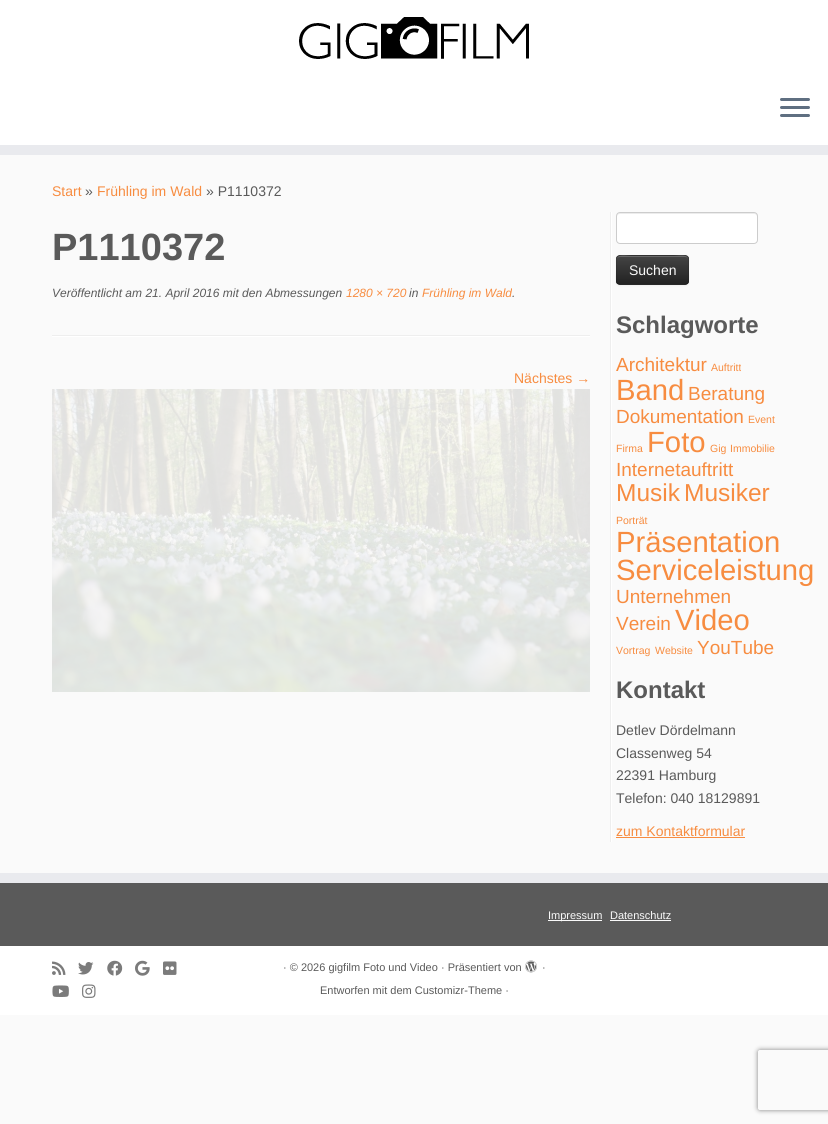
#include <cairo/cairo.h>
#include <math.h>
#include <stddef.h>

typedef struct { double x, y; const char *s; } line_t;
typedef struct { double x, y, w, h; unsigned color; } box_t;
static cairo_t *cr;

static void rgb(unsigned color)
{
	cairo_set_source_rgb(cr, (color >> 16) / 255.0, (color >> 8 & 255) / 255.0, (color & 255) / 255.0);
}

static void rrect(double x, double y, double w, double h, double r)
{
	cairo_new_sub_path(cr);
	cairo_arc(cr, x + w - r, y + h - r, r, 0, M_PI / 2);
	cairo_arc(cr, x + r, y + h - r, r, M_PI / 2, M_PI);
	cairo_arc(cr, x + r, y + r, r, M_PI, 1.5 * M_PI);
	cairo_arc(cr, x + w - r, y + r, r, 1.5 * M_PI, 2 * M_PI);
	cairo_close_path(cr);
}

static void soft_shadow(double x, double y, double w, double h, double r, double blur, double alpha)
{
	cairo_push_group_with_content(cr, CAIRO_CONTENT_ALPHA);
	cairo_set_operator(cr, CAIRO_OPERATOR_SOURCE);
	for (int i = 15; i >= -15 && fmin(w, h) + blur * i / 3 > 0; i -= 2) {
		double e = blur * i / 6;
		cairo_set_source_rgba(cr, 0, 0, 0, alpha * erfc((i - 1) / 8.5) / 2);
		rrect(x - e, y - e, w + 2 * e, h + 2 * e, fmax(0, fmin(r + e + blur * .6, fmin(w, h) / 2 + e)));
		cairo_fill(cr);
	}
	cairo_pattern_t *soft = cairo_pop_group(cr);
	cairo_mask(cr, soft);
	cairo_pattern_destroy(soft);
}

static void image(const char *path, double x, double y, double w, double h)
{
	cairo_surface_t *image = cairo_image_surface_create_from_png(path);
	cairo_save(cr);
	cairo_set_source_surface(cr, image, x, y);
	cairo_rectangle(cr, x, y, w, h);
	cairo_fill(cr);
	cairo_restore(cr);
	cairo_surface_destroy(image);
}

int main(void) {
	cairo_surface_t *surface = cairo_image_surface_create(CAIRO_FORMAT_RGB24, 828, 1124);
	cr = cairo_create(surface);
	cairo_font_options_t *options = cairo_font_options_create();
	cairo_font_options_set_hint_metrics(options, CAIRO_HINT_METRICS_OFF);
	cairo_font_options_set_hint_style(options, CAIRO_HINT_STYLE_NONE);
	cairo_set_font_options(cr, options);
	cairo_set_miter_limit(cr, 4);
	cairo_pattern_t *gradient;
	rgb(0xfafafa);
	cairo_paint(cr);
	rgb(0xffffff);
	cairo_rectangle(cr, 0, 0, 828, 145);
	cairo_fill(cr);
	rgb(0xe9eaee);
	cairo_rectangle(cr, 0, 145, 828, 10);
	cairo_fill(cr);
	image("img/1.png", 299, 17, 230, 42);
	rgb(0x5f6f81);
	rrect(780, 98, 30, 3, 1.5);
	cairo_fill(cr);
	rrect(780, 106, 30, 3, 1.5);
	cairo_fill(cr);
	rrect(780, 114, 30, 3, 1.5);
	cairo_fill(cr);
	rgb(0xeeeeee);
	cairo_rectangle(cr, 52, 335, 538, 1);
	cairo_fill(cr);
	rgb(0xffffff);
	cairo_rectangle(cr, 52, 336, 538, 1);
	cairo_fill(cr);
	image("img/2.png", 52, 389, 538, 303);
	rgb(0xeeeeee);
	cairo_rectangle(cr, 610, 212, 1, 630);
	cairo_fill(cr);
	rgb(0xffffff);
	cairo_rectangle(cr, 611, 212, 1, 630);
	cairo_fill(cr);
	rrect(616, 212, 142, 32, 4);
	cairo_fill(cr);
	rgb(0xececec);
	cairo_new_path(cr);
	cairo_move_to(cr, 620, 214);
	cairo_line_to(cr, 754, 214);
	cairo_curve_to(cr, 756, 214, 757, 215, 757, 217);
	cairo_line_to(cr, 757, 216);
	cairo_curve_to(cr, 757, 214, 756, 213, 754, 213);
	cairo_line_to(cr, 620, 213);
	cairo_curve_to(cr, 618, 213, 617, 214, 617, 216);
	cairo_line_to(cr, 617, 217);
	cairo_curve_to(cr, 617, 215, 618, 214, 620, 214);
	cairo_close_path(cr);
	cairo_fill(cr);
	rrect(616.5, 212.5, 141, 31, 3.5);
	rgb(0xcccccc);
	cairo_set_line_width(cr, 1);
	cairo_stroke(cr);
	rgb(0x000000);
	soft_shadow(616, 256, 73, 30, 4, 1, 0.05);
	rgb(0x363636);
	rrect(616, 255, 73, 30, 4);
	cairo_fill(cr);
	cairo_save(cr);
	rrect(616, 255, 73, 30, 4);
	cairo_clip(cr);
	gradient = cairo_pattern_create_linear(653, 256, 653, 284);
	cairo_pattern_add_color_stop_rgba(gradient, 0, 0.267, 0.267, 0.267, 1);
	cairo_pattern_add_color_stop_rgba(gradient, 1, 0.133, 0.133, 0.133, 1);
	cairo_set_source(cr, gradient);
	cairo_pattern_destroy(gradient);
	cairo_rectangle(cr, 616, 256, 73, 28);
	cairo_fill(cr);
	cairo_restore(cr);
	cairo_set_source_rgba(cr, 1, 1, 1, 0.2);
	cairo_new_path(cr);
	cairo_move_to(cr, 620, 257);
	cairo_line_to(cr, 685, 257);
	cairo_curve_to(cr, 687, 257, 688, 258, 688, 260);
	cairo_curve_to(cr, 688, 253, 678, 256, 674, 256);
	cairo_line_to(cr, 631, 256);
	cairo_curve_to(cr, 627, 256, 617, 253, 617, 260);
	cairo_curve_to(cr, 617, 258, 618, 257, 620, 257);
	cairo_close_path(cr);
	cairo_fill(cr);
	cairo_new_path(cr);
	cairo_move_to(cr, 687.5, 283.5);
	cairo_line_to(cr, 685.5, 284.5);
	cairo_line_to(cr, 619.5, 284.5);
	cairo_line_to(cr, 617.5, 283.5);
	cairo_set_source_rgba(cr, 0, 0, 0, 0.25);
	cairo_stroke(cr);
	cairo_new_path(cr);
	cairo_move_to(cr, 617.5, 283.5);
	cairo_curve_to(cr, 615.5, 281.5, 616.5, 273, 616.5, 270);
	cairo_curve_to(cr, 616.5, 253.5, 614, 255.5, 631, 255.5);
	cairo_line_to(cr, 674, 255.5);
	cairo_curve_to(cr, 691, 255.5, 688.5, 253.5, 688.5, 270);
	cairo_curve_to(cr, 688.5, 273, 689.5, 281.5, 687.5, 283.5);
	cairo_set_source_rgba(cr, 0, 0, 0, 0.1);
	cairo_stroke(cr);
	{
		static const box_t items[] = {
			{616, 837, 129, 1, 0xf78c40},
			{0, 883, 828, 63, 0x5a5a5a},
			{0, 873, 828, 10, 0xe9eaee},
			{548, 920, 54, 1, 0xfafafa},
			{610, 920, 61, 1, 0xfafafa},
			{0, 946, 828, 69, 0xffffff},
		};
		for (size_t i = 0; i < sizeof items / sizeof *items; i++) {
			rgb(items[i].color);
			cairo_rectangle(cr, items[i].x, items[i].y, items[i].w, items[i].h);
			cairo_fill(cr);
		}
	}
	image("img/3.png", 52, 961, 14, 14);
	image("img/4.png", 78, 962, 16, 13);
	image("img/5.png", 107, 960, 16, 16);
	image("img/6.png", 135, 960, 15, 16);
	image("img/7.png", 163, 961, 14, 14);
	image("img/8.png", 52, 985, 17, 12);
	image("img/9.png", 82, 984, 14, 14);
	image("img/10.png", 525, 960, 12, 13);
	cairo_save(cr);
	cairo_set_fill_rule(cr, CAIRO_FILL_RULE_EVEN_ODD);
	cairo_new_path(cr);
	cairo_move_to(cr, 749, 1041);
	cairo_line_to(cr, 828, 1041);
	cairo_line_to(cr, 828, 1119);
	cairo_line_to(cr, 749, 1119);
	cairo_close_path(cr);
	cairo_move_to(cr, 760, 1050);
	cairo_line_to(cr, 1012, 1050);
	cairo_curve_to(cr, 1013, 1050, 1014, 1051, 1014, 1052);
	cairo_line_to(cr, 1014, 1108);
	cairo_curve_to(cr, 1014, 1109, 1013, 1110, 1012, 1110);
	cairo_line_to(cr, 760, 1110);
	cairo_curve_to(cr, 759, 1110, 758, 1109, 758, 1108);
	cairo_line_to(cr, 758, 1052);
	cairo_curve_to(cr, 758, 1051, 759, 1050, 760, 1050);
	cairo_close_path(cr);
	cairo_clip(cr);
	rgb(0x808080);
	soft_shadow(758, 1050, 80, 60, 2, 2.5, 1);
	cairo_restore(cr);
	cairo_select_font_face(cr, "Liberation Sans", CAIRO_FONT_SLANT_NORMAL, CAIRO_FONT_WEIGHT_NORMAL);
	cairo_set_font_size(cr, 14);
	rgb(0xf78c40);
	cairo_move_to(cr, 52, 196);
	cairo_show_text(cr, "Start");
	rgb(0x5a5a5a);
	cairo_move_to(cr, 85, 196);
	cairo_show_text(cr, "»");
	rgb(0xf78c40);
	cairo_move_to(cr, 97, 196);
	cairo_show_text(cr, "Frühling im Wald");
	rgb(0x5a5a5a);
	cairo_move_to(cr, 206, 196);
	cairo_show_text(cr, "» P1110372");
	cairo_select_font_face(cr, "Liberation Sans", CAIRO_FONT_SLANT_NORMAL, CAIRO_FONT_WEIGHT_BOLD);
	cairo_set_font_size(cr, 38);
	cairo_move_to(cr, 52, 260);
	cairo_show_text(cr, "P1110372");
	cairo_select_font_face(cr, "Liberation Sans", CAIRO_FONT_SLANT_ITALIC, CAIRO_FONT_WEIGHT_NORMAL);
	cairo_set_font_size(cr, 12);
	cairo_move_to(cr, 52, 297);
	cairo_show_text(cr, "Veröffentlicht am 21. April 2016 mit den Abmessungen");
	rgb(0xf78c40);
	cairo_move_to(cr, 346, 297);
	cairo_show_text(cr, "1280 × 720");
	rgb(0x5a5a5a);
	cairo_move_to(cr, 409, 297);
	cairo_show_text(cr, "in");
	rgb(0xf78c40);
	cairo_move_to(cr, 422, 297);
	cairo_show_text(cr, "Frühling im Wald");
	rgb(0x5a5a5a);
	cairo_move_to(cr, 512, 297);
	cairo_show_text(cr, ".");
	cairo_select_font_face(cr, "Liberation Sans", CAIRO_FONT_SLANT_NORMAL, CAIRO_FONT_WEIGHT_NORMAL);
	cairo_set_font_size(cr, 14);
	rgb(0xf78c40);
	cairo_move_to(cr, 514, 383);
	cairo_show_text(cr, "Nächstes →");
	rgb(0xfafafa);
	cairo_move_to(cr, 629, 275);
	cairo_show_text(cr, "Suchen");
	cairo_select_font_face(cr, "Liberation Sans", CAIRO_FONT_SLANT_NORMAL, CAIRO_FONT_WEIGHT_BOLD);
	cairo_set_font_size(cr, 24);
	rgb(0x5a5a5a);
	cairo_move_to(cr, 616, 333);
	cairo_show_text(cr, "Schlagworte");
	cairo_select_font_face(cr, "Liberation Sans", CAIRO_FONT_SLANT_NORMAL, CAIRO_FONT_WEIGHT_NORMAL);
	cairo_set_font_size(cr, 19);
	rgb(0xf78c40);
	cairo_move_to(cr, 616, 371);
	cairo_show_text(cr, "Architektur");
	cairo_set_font_size(cr, 10.5);
	cairo_move_to(cr, 711, 371);
	cairo_show_text(cr, "Auftritt");
	cairo_set_font_size(cr, 29.25);
	cairo_move_to(cr, 616, 400);
	cairo_show_text(cr, "Band");
	cairo_set_font_size(cr, 19);
	cairo_move_to(cr, 688, 400);
	cairo_show_text(cr, "Beratung");
	cairo_move_to(cr, 616, 423);
	cairo_show_text(cr, "Dokumentation");
	cairo_set_font_size(cr, 10.5);
	cairo_move_to(cr, 748, 423);
	cairo_show_text(cr, "Event");
	cairo_move_to(cr, 616, 452);
	cairo_show_text(cr, "Firma");
	cairo_set_font_size(cr, 29.25);
	cairo_move_to(cr, 647, 452);
	cairo_show_text(cr, "Foto");
	cairo_set_font_size(cr, 10.5);
	cairo_move_to(cr, 710, 452);
	cairo_show_text(cr, "Gig");
	cairo_move_to(cr, 730, 452);
	cairo_show_text(cr, "Immobilie");
	cairo_set_font_size(cr, 19);
	cairo_move_to(cr, 616, 476);
	cairo_show_text(cr, "Internetauftritt");
	cairo_set_font_size(cr, 24.5);
	cairo_move_to(cr, 616, 501);
	cairo_show_text(cr, "Musik");
	cairo_move_to(cr, 684, 501);
	cairo_show_text(cr, "Musiker");
	cairo_set_font_size(cr, 10.5);
	cairo_move_to(cr, 616, 524);
	cairo_show_text(cr, "Porträt");
	cairo_set_font_size(cr, 29.25);
	cairo_move_to(cr, 616, 552);
	cairo_show_text(cr, "Präsentation");
	cairo_move_to(cr, 616, 580);
	cairo_show_text(cr, "Serviceleistung");
	cairo_set_font_size(cr, 19);
	cairo_move_to(cr, 616, 603);
	cairo_show_text(cr, "Unternehmen");
	cairo_move_to(cr, 616, 630);
	cairo_show_text(cr, "Verein");
	cairo_set_font_size(cr, 29.25);
	cairo_move_to(cr, 675, 630);
	cairo_show_text(cr, "Video");
	cairo_set_font_size(cr, 10.5);
	cairo_move_to(cr, 616, 654);
	cairo_show_text(cr, "Vortrag");
	cairo_move_to(cr, 655, 654);
	cairo_show_text(cr, "Website");
	cairo_set_font_size(cr, 19);
	cairo_move_to(cr, 697, 654);
	cairo_show_text(cr, "YouTube");
	cairo_select_font_face(cr, "Liberation Sans", CAIRO_FONT_SLANT_NORMAL, CAIRO_FONT_WEIGHT_BOLD);
	cairo_set_font_size(cr, 24);
	rgb(0x5a5a5a);
	cairo_move_to(cr, 616, 698);
	cairo_show_text(cr, "Kontakt");
	cairo_select_font_face(cr, "Liberation Sans", CAIRO_FONT_SLANT_NORMAL, CAIRO_FONT_WEIGHT_NORMAL);
	cairo_set_font_size(cr, 14);
	{
		static const line_t items[] = {
			{616, 735, "Detlev Dördelmann"},
			{616, 758, "Classenweg 54"},
			{616, 780, "22391 Hamburg"},
			{616, 803, "Telefon: 040 18129891"},
		};
		for (size_t i = 0; i < sizeof items / sizeof *items; i++) {
			cairo_move_to(cr, items[i].x, items[i].y);
			cairo_show_text(cr, items[i].s);
		}
	}
	rgb(0xf78c40);
	cairo_move_to(cr, 616, 836);
	cairo_show_text(cr, "zum Kontaktformular");
	cairo_set_font_size(cr, 11);
	rgb(0xfafafa);
	cairo_move_to(cr, 548, 919);
	cairo_show_text(cr, "Impressum");
	cairo_move_to(cr, 610, 919);
	cairo_show_text(cr, "Datenschutz");
	rgb(0x5a5a5a);
	{
		static const line_t items[] = {
			{283, 971, "· © 2026 gigfilm Foto und Video · Präsentiert von"},
			{542, 971, "·"},
			{320, 994, "Entworfen mit dem Customizr-Theme ·"},
		};
		for (size_t i = 0; i < sizeof items / sizeof *items; i++) {
			cairo_move_to(cr, items[i].x, items[i].y);
			cairo_show_text(cr, items[i].s);
		}
	}
	cairo_surface_write_to_png(surface, "page.png");
	cairo_font_options_destroy(options);
	cairo_destroy(cr);
	cairo_surface_destroy(surface);
	return 0;
}
